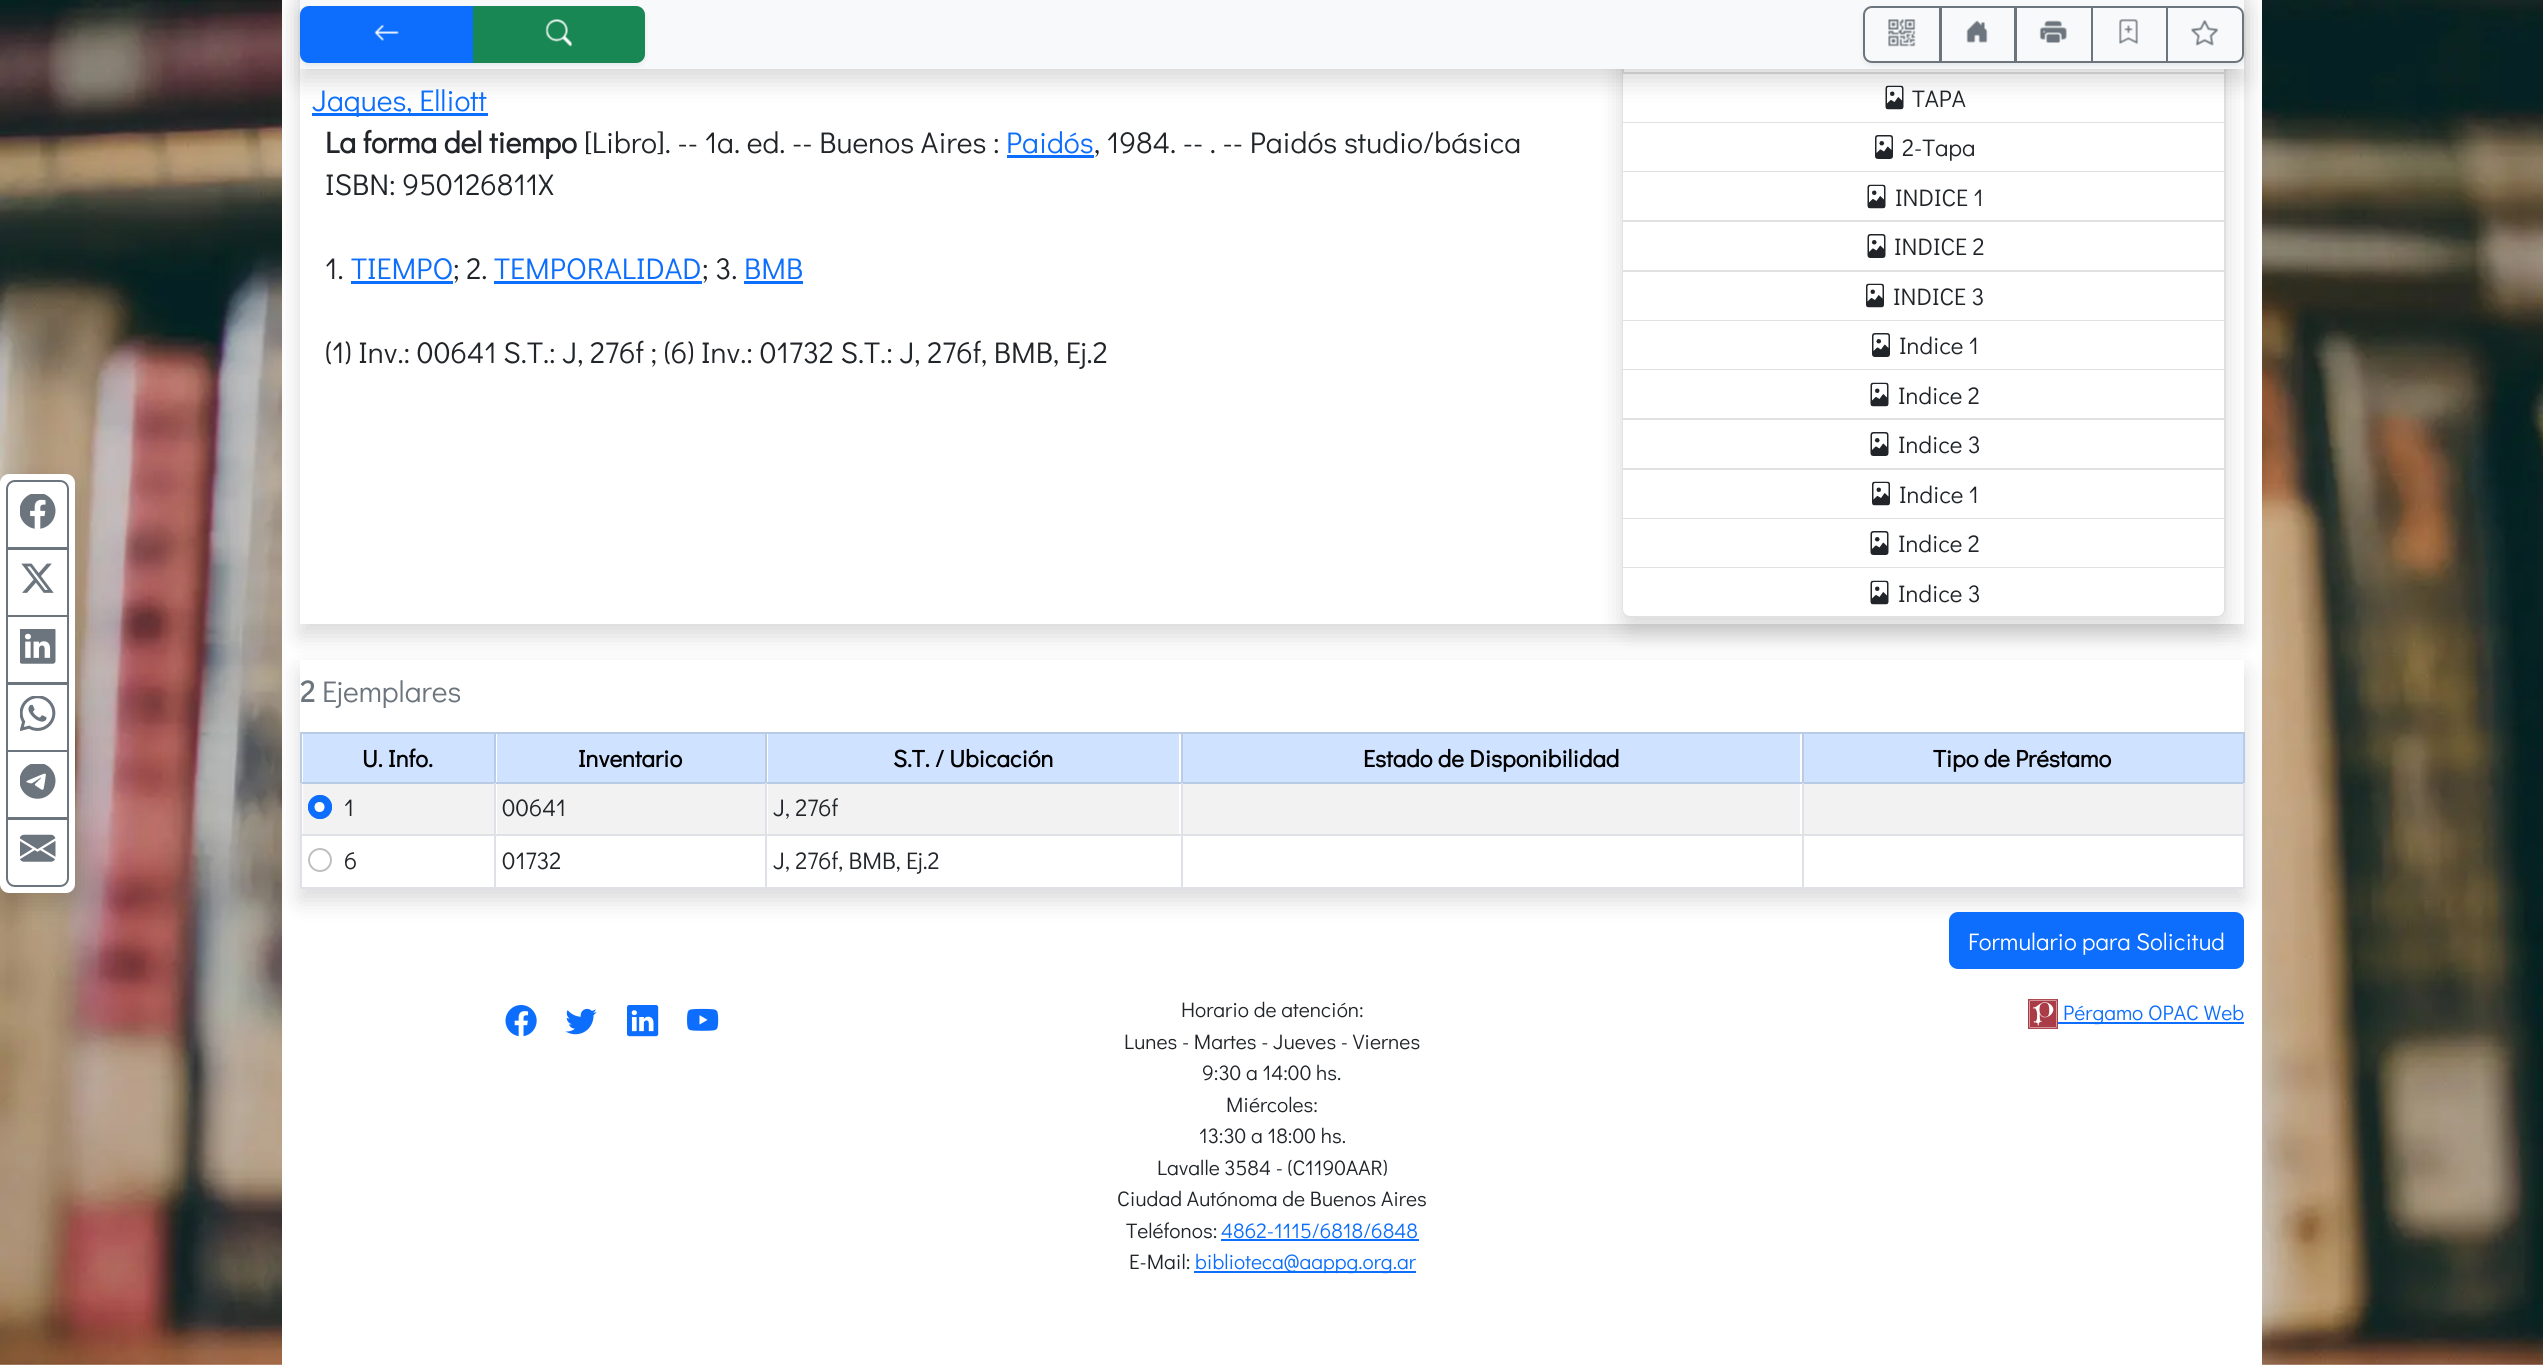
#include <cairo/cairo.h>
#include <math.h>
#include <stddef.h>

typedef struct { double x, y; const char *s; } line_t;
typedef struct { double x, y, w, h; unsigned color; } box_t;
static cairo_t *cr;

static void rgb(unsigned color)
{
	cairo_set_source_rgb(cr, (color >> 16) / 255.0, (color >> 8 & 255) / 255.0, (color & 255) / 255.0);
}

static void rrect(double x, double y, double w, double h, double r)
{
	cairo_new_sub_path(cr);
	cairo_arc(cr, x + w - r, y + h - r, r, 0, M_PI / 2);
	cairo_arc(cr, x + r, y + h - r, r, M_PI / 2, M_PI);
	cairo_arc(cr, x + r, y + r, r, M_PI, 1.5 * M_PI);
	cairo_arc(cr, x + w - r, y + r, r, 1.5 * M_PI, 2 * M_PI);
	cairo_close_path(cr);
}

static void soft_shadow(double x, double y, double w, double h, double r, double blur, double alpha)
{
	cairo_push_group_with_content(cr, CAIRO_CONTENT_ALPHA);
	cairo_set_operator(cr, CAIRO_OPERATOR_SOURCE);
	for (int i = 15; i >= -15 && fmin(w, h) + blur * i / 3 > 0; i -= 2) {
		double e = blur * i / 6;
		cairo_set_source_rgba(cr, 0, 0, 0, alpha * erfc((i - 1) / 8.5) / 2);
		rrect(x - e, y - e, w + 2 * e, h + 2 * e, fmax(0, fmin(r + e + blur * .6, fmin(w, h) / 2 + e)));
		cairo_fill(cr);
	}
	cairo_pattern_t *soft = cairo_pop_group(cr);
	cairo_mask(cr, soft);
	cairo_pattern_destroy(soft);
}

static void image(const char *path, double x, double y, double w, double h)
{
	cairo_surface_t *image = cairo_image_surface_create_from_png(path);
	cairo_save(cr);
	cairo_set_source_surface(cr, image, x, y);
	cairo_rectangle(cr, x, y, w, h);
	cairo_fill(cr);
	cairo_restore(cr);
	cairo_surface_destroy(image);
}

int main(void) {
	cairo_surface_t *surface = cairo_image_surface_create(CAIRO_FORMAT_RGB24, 2543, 1365);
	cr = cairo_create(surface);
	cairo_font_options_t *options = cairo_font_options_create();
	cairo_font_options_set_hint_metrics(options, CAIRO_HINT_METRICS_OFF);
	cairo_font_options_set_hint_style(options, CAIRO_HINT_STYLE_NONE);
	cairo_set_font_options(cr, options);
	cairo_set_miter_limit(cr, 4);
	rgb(0xffffff);
	cairo_paint(cr);
	image("img/1.png", 0, 0, 2543, 1365);
	rgb(0x000000);
	soft_shadow(0, 486, 75, 419, 9, 12, 0.15);
	rgb(0xffffff);
	rrect(0, 474, 75, 419, 9);
	cairo_fill(cr);
	cairo_new_path(cr);
	cairo_move_to(cr, 15, 481);
	cairo_line_to(cr, 60, 481);
	cairo_curve_to(cr, 64.5, 481, 68, 484.5, 68, 489);
	cairo_line_to(cr, 68, 548);
	cairo_line_to(cr, 7, 548);
	cairo_line_to(cr, 7, 489);
	cairo_curve_to(cr, 7, 484.5, 10.5, 481, 15, 481);
	cairo_close_path(cr);
	rgb(0x6c757d);
	cairo_stroke(cr);
	image("img/2.png", 20, 494, 36, 35);
	cairo_rectangle(cr, 7, 549, 61, 67);
	cairo_stroke(cr);
	image("img/3.png", 21, 563, 33, 30);
	cairo_rectangle(cr, 7, 616, 61, 67);
	cairo_stroke(cr);
	image("img/4.png", 20, 629, 36, 35);
	cairo_rectangle(cr, 7, 684, 61, 67);
	cairo_stroke(cr);
	image("img/5.png", 20, 696, 36, 36);
	cairo_rectangle(cr, 7, 751, 61, 67);
	cairo_stroke(cr);
	image("img/6.png", 20, 764, 36, 35);
	cairo_new_path(cr);
	cairo_move_to(cr, 7, 819);
	cairo_line_to(cr, 68, 819);
	cairo_line_to(cr, 68, 878);
	cairo_curve_to(cr, 68, 882.5, 64.5, 886, 60, 886);
	cairo_line_to(cr, 15, 886);
	cairo_curve_to(cr, 10.5, 886, 7, 882.5, 7, 878);
	cairo_close_path(cr);
	cairo_stroke(cr);
	image("img/7.png", 20, 834, 36, 28);
	rgb(0xffffff);
	cairo_rectangle(cr, 282, 0, 1980, 1365);
	cairo_fill(cr);
	cairo_save(cr);
	cairo_set_fill_rule(cr, CAIRO_FILL_RULE_EVEN_ODD);
	cairo_new_path(cr);
	cairo_move_to(cr, 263, 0);
	cairo_line_to(cr, 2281, 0);
	cairo_line_to(cr, 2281, 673);
	cairo_line_to(cr, 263, 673);
	cairo_close_path(cr);
	cairo_move_to(cr, 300, -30);
	cairo_line_to(cr, 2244, -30);
	cairo_line_to(cr, 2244, 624);
	cairo_line_to(cr, 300, 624);
	cairo_close_path(cr);
	cairo_clip(cr);
	rgb(0x000000);
	soft_shadow(300, -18, 1944, 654, 0, 12, 0.15);
	cairo_restore(cr);
	rgb(0x0d6efd);
	cairo_rectangle(cr, 312, 113, 176, 3);
	cairo_fill(cr);
	cairo_save(cr);
	cairo_set_fill_rule(cr, CAIRO_FILL_RULE_EVEN_ODD);
	cairo_new_path(cr);
	cairo_move_to(cr, 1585, 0);
	cairo_line_to(cr, 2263, 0);
	cairo_line_to(cr, 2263, 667);
	cairo_line_to(cr, 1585, 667);
	cairo_close_path(cr);
	cairo_move_to(cr, 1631, 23);
	cairo_line_to(cr, 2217, 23);
	cairo_curve_to(cr, 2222, 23, 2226, 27, 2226, 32);
	cairo_line_to(cr, 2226, 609);
	cairo_curve_to(cr, 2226, 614, 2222, 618, 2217, 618);
	cairo_line_to(cr, 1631, 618);
	cairo_curve_to(cr, 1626, 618, 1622, 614, 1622, 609);
	cairo_line_to(cr, 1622, 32);
	cairo_curve_to(cr, 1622, 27, 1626, 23, 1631, 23);
	cairo_close_path(cr);
	cairo_clip(cr);
	rgb(0x000000);
	soft_shadow(1622, 35, 604, 595, 9, 12, 0.15);
	cairo_restore(cr);
	cairo_rectangle(cr, 1623, 24, 602, 49);
	rgb(0xdfdfdf);
	cairo_stroke(cr);
	cairo_new_path(cr);
	cairo_move_to(cr, 2226, 74);
	cairo_line_to(cr, 2226, 123);
	cairo_line_to(cr, 2224, 122);
	cairo_line_to(cr, 2224, 74);
	cairo_close_path(cr);
	cairo_fill(cr);
	cairo_set_source_rgba(cr, 0, 0, 0, 0.12);
	cairo_new_path(cr);
	cairo_move_to(cr, 2226, 123);
	cairo_line_to(cr, 1622, 123);
	cairo_line_to(cr, 1623, 122);
	cairo_line_to(cr, 2224, 122);
	cairo_close_path(cr);
	cairo_fill(cr);
	cairo_new_path(cr);
	cairo_move_to(cr, 1622, 123);
	cairo_line_to(cr, 1622, 74);
	cairo_line_to(cr, 1623, 74);
	cairo_line_to(cr, 1623, 122);
	cairo_close_path(cr);
	cairo_fill(cr);
	image("img/15.png", 1885, 85, 19, 25);
	rgb(0x000000);
	soft_shadow(300, 12, 1944, 69, 0, 12, 0.15);
	rgb(0xf8f9fa);
	cairo_rectangle(cr, 300, 0, 1944, 69);
	cairo_fill(cr);
	rgb(0x000000);
	soft_shadow(300, 9, 345, 57, 9, 3, 0.07);
	rgb(0x0d6efd);
	cairo_new_path(cr);
	cairo_move_to(cr, 309, 7);
	cairo_line_to(cr, 473, 7);
	cairo_line_to(cr, 473, 62);
	cairo_line_to(cr, 309, 62);
	cairo_curve_to(cr, 304.5, 62, 301, 58.5, 301, 54);
	cairo_line_to(cr, 301, 15);
	cairo_curve_to(cr, 301, 10.5, 304.5, 7, 309, 7);
	cairo_close_path(cr);
	cairo_fill_preserve(cr);
	cairo_stroke(cr);
	image("img/8.png", 374, 24, 25, 17);
	rgb(0x198754);
	cairo_new_path(cr);
	cairo_move_to(cr, 474, 7);
	cairo_line_to(cr, 636, 7);
	cairo_curve_to(cr, 640.5, 7, 644, 10.5, 644, 15);
	cairo_line_to(cr, 644, 54);
	cairo_curve_to(cr, 644, 58.5, 640.5, 62, 636, 62);
	cairo_line_to(cr, 474, 62);
	cairo_close_path(cr);
	cairo_fill_preserve(cr);
	cairo_stroke(cr);
	image("img/9.png", 545, 19, 27, 28);
	cairo_save(cr);
	cairo_set_fill_rule(cr, CAIRO_FILL_RULE_EVEN_ODD);
	cairo_new_path(cr);
	cairo_move_to(cr, 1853, 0);
	cairo_line_to(cr, 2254, 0);
	cairo_line_to(cr, 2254, 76);
	cairo_line_to(cr, 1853, 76);
	cairo_close_path(cr);
	cairo_move_to(cr, 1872, 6);
	cairo_line_to(cr, 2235, 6);
	cairo_curve_to(cr, 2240, 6, 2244, 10, 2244, 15);
	cairo_line_to(cr, 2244, 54);
	cairo_curve_to(cr, 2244, 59, 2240, 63, 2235, 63);
	cairo_line_to(cr, 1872, 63);
	cairo_curve_to(cr, 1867, 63, 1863, 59, 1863, 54);
	cairo_line_to(cr, 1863, 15);
	cairo_curve_to(cr, 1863, 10, 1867, 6, 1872, 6);
	cairo_close_path(cr);
	cairo_clip(cr);
	rgb(0x000000);
	soft_shadow(1863, 9, 381, 57, 9, 3, 0.07);
	cairo_restore(cr);
	cairo_new_path(cr);
	cairo_move_to(cr, 1872, 7);
	cairo_line_to(cr, 1940, 7);
	cairo_line_to(cr, 1940, 62);
	cairo_line_to(cr, 1872, 62);
	cairo_curve_to(cr, 1867.5, 62, 1864, 58.5, 1864, 54);
	cairo_line_to(cr, 1864, 15);
	cairo_curve_to(cr, 1864, 10.5, 1867.5, 7, 1872, 7);
	cairo_close_path(cr);
	rgb(0x6c757d);
	cairo_stroke(cr);
	image("img/10.png", 1888, 19, 28, 28);
	cairo_rectangle(cr, 1941, 7, 74, 55);
	cairo_stroke(cr);
	image("img/11.png", 1966, 20, 22, 23);
	cairo_rectangle(cr, 2016, 7, 76, 55);
	cairo_stroke(cr);
	image("img/12.png", 2039, 20, 28, 23);
	cairo_rectangle(cr, 2092, 7, 75, 55);
	cairo_stroke(cr);
	image("img/13.png", 2119, 19, 19, 25);
	cairo_new_path(cr);
	cairo_move_to(cr, 2167, 7);
	cairo_line_to(cr, 2235, 7);
	cairo_curve_to(cr, 2239.5, 7, 2243, 10.5, 2243, 15);
	cairo_line_to(cr, 2243, 54);
	cairo_curve_to(cr, 2243, 58.5, 2239.5, 62, 2235, 62);
	cairo_line_to(cr, 2167, 62);
	cairo_close_path(cr);
	cairo_stroke(cr);
	image("img/14.png", 2191, 20, 28, 26);
	{
		static const box_t items[] = {
			{1007, 155, 87, 3, 0x0d6efd},
			{351, 281, 102, 3, 0x0d6efd},
			{494, 281, 208, 3, 0x0d6efd},
			{744, 281, 59, 3, 0x0d6efd},
		};
		for (size_t i = 0; i < sizeof items / sizeof *items; i++) {
			rgb(items[i].color);
			cairo_rectangle(cr, items[i].x, items[i].y, items[i].w, items[i].h);
			cairo_fill(cr);
		}
	}
	rgb(0xdfdfdf);
	cairo_new_path(cr);
	cairo_move_to(cr, 2226, 123);
	cairo_line_to(cr, 2226, 172);
	cairo_line_to(cr, 2224, 171);
	cairo_line_to(cr, 2224, 123);
	cairo_close_path(cr);
	cairo_fill(cr);
	cairo_set_source_rgba(cr, 0, 0, 0, 0.12);
	cairo_new_path(cr);
	cairo_move_to(cr, 2226, 172);
	cairo_line_to(cr, 1622, 172);
	cairo_line_to(cr, 1623, 171);
	cairo_line_to(cr, 2224, 171);
	cairo_close_path(cr);
	cairo_fill(cr);
	cairo_new_path(cr);
	cairo_move_to(cr, 1622, 172);
	cairo_line_to(cr, 1622, 123);
	cairo_line_to(cr, 1623, 123);
	cairo_line_to(cr, 1623, 171);
	cairo_close_path(cr);
	cairo_fill(cr);
	image("img/16.png", 1875, 135, 18, 24);
	rgb(0xdfdfdf);
	cairo_new_path(cr);
	cairo_move_to(cr, 2226, 172);
	cairo_line_to(cr, 2226, 222);
	cairo_line_to(cr, 2224, 220);
	cairo_line_to(cr, 2224, 172);
	cairo_close_path(cr);
	cairo_fill(cr);
	cairo_set_source_rgba(cr, 0, 0, 0, 0.12);
	cairo_new_path(cr);
	cairo_move_to(cr, 2226, 222);
	cairo_line_to(cr, 1622, 222);
	cairo_line_to(cr, 1623, 220);
	cairo_line_to(cr, 2224, 220);
	cairo_close_path(cr);
	cairo_fill(cr);
	cairo_new_path(cr);
	cairo_move_to(cr, 1622, 222);
	cairo_line_to(cr, 1622, 172);
	cairo_line_to(cr, 1623, 172);
	cairo_line_to(cr, 1623, 220);
	cairo_close_path(cr);
	cairo_fill(cr);
	image("img/15.png", 1867, 184, 19, 25);
	rgb(0xdfdfdf);
	cairo_new_path(cr);
	cairo_move_to(cr, 2226, 222);
	cairo_line_to(cr, 2226, 272);
	cairo_line_to(cr, 2224, 270);
	cairo_line_to(cr, 2224, 222);
	cairo_close_path(cr);
	cairo_fill(cr);
	cairo_set_source_rgba(cr, 0, 0, 0, 0.12);
	cairo_new_path(cr);
	cairo_move_to(cr, 2226, 272);
	cairo_line_to(cr, 1622, 272);
	cairo_line_to(cr, 1623, 270);
	cairo_line_to(cr, 2224, 270);
	cairo_close_path(cr);
	cairo_fill(cr);
	cairo_new_path(cr);
	cairo_move_to(cr, 1622, 272);
	cairo_line_to(cr, 1622, 222);
	cairo_line_to(cr, 1623, 222);
	cairo_line_to(cr, 1623, 270);
	cairo_close_path(cr);
	cairo_fill(cr);
	image("img/17.png", 1867, 234, 19, 24);
	rgb(0xdfdfdf);
	cairo_new_path(cr);
	cairo_move_to(cr, 2226, 272);
	cairo_line_to(cr, 2226, 321);
	cairo_line_to(cr, 2224, 320);
	cairo_line_to(cr, 2224, 272);
	cairo_close_path(cr);
	cairo_fill(cr);
	cairo_set_source_rgba(cr, 0, 0, 0, 0.12);
	cairo_new_path(cr);
	cairo_move_to(cr, 2226, 321);
	cairo_line_to(cr, 1622, 321);
	cairo_line_to(cr, 1623, 320);
	cairo_line_to(cr, 2224, 320);
	cairo_close_path(cr);
	cairo_fill(cr);
	cairo_new_path(cr);
	cairo_move_to(cr, 1622, 321);
	cairo_line_to(cr, 1622, 272);
	cairo_line_to(cr, 1623, 272);
	cairo_line_to(cr, 1623, 320);
	cairo_close_path(cr);
	cairo_fill(cr);
	image("img/18.png", 1866, 283, 18, 25);
	rgb(0xdfdfdf);
	cairo_new_path(cr);
	cairo_move_to(cr, 2226, 321);
	cairo_line_to(cr, 2226, 370);
	cairo_line_to(cr, 2224, 369);
	cairo_line_to(cr, 2224, 321);
	cairo_close_path(cr);
	cairo_fill(cr);
	cairo_set_source_rgba(cr, 0, 0, 0, 0.12);
	cairo_new_path(cr);
	cairo_move_to(cr, 2226, 370);
	cairo_line_to(cr, 1622, 370);
	cairo_line_to(cr, 1623, 369);
	cairo_line_to(cr, 2224, 369);
	cairo_close_path(cr);
	cairo_fill(cr);
	cairo_new_path(cr);
	cairo_move_to(cr, 1622, 370);
	cairo_line_to(cr, 1622, 321);
	cairo_line_to(cr, 1623, 321);
	cairo_line_to(cr, 1623, 369);
	cairo_close_path(cr);
	cairo_fill(cr);
	image("img/19.png", 1872, 333, 18, 24);
	rgb(0xdfdfdf);
	cairo_new_path(cr);
	cairo_move_to(cr, 2226, 370);
	cairo_line_to(cr, 2226, 420);
	cairo_line_to(cr, 2224, 418);
	cairo_line_to(cr, 2224, 370);
	cairo_close_path(cr);
	cairo_fill(cr);
	cairo_set_source_rgba(cr, 0, 0, 0, 0.12);
	cairo_new_path(cr);
	cairo_move_to(cr, 2226, 420);
	cairo_line_to(cr, 1622, 420);
	cairo_line_to(cr, 1623, 418);
	cairo_line_to(cr, 2224, 418);
	cairo_close_path(cr);
	cairo_fill(cr);
	cairo_new_path(cr);
	cairo_move_to(cr, 1622, 420);
	cairo_line_to(cr, 1622, 370);
	cairo_line_to(cr, 1623, 370);
	cairo_line_to(cr, 1623, 418);
	cairo_close_path(cr);
	cairo_fill(cr);
	image("img/15.png", 1870, 382, 19, 25);
	rgb(0xdfdfdf);
	cairo_new_path(cr);
	cairo_move_to(cr, 2226, 420);
	cairo_line_to(cr, 2226, 470);
	cairo_line_to(cr, 2224, 468);
	cairo_line_to(cr, 2224, 420);
	cairo_close_path(cr);
	cairo_fill(cr);
	cairo_set_source_rgba(cr, 0, 0, 0, 0.12);
	cairo_new_path(cr);
	cairo_move_to(cr, 2226, 470);
	cairo_line_to(cr, 1622, 470);
	cairo_line_to(cr, 1623, 468);
	cairo_line_to(cr, 2224, 468);
	cairo_close_path(cr);
	cairo_fill(cr);
	cairo_new_path(cr);
	cairo_move_to(cr, 1622, 470);
	cairo_line_to(cr, 1622, 420);
	cairo_line_to(cr, 1623, 420);
	cairo_line_to(cr, 1623, 468);
	cairo_close_path(cr);
	cairo_fill(cr);
	image("img/17.png", 1870, 432, 19, 24);
	rgb(0xdfdfdf);
	cairo_new_path(cr);
	cairo_move_to(cr, 2226, 470);
	cairo_line_to(cr, 2226, 519);
	cairo_line_to(cr, 2224, 518);
	cairo_line_to(cr, 2224, 470);
	cairo_close_path(cr);
	cairo_fill(cr);
	cairo_set_source_rgba(cr, 0, 0, 0, 0.12);
	cairo_new_path(cr);
	cairo_move_to(cr, 2226, 519);
	cairo_line_to(cr, 1622, 519);
	cairo_line_to(cr, 1623, 518);
	cairo_line_to(cr, 2224, 518);
	cairo_close_path(cr);
	cairo_fill(cr);
	cairo_new_path(cr);
	cairo_move_to(cr, 1622, 519);
	cairo_line_to(cr, 1622, 470);
	cairo_line_to(cr, 1623, 470);
	cairo_line_to(cr, 1623, 518);
	cairo_close_path(cr);
	cairo_fill(cr);
	image("img/18.png", 1872, 481, 18, 25);
	rgb(0xdfdfdf);
	cairo_new_path(cr);
	cairo_move_to(cr, 2226, 519);
	cairo_line_to(cr, 2226, 568);
	cairo_line_to(cr, 2224, 567);
	cairo_line_to(cr, 2224, 519);
	cairo_close_path(cr);
	cairo_fill(cr);
	cairo_set_source_rgba(cr, 0, 0, 0, 0.12);
	cairo_new_path(cr);
	cairo_move_to(cr, 2226, 568);
	cairo_line_to(cr, 1622, 568);
	cairo_line_to(cr, 1623, 567);
	cairo_line_to(cr, 2224, 567);
	cairo_close_path(cr);
	cairo_fill(cr);
	cairo_new_path(cr);
	cairo_move_to(cr, 1622, 568);
	cairo_line_to(cr, 1622, 519);
	cairo_line_to(cr, 1623, 519);
	cairo_line_to(cr, 1623, 567);
	cairo_close_path(cr);
	cairo_fill(cr);
	image("img/17.png", 1870, 531, 19, 24);
	rgb(0xffffff);
	cairo_new_path(cr);
	cairo_move_to(cr, 1622, 569);
	cairo_line_to(cr, 2226, 569);
	cairo_line_to(cr, 2226, 609);
	cairo_curve_to(cr, 2226, 614, 2222, 618, 2217, 618);
	cairo_line_to(cr, 1631, 618);
	cairo_curve_to(cr, 1626, 618, 1622, 614, 1622, 609);
	cairo_close_path(cr);
	cairo_fill(cr);
	cairo_set_source_rgba(cr, 0, 0, 0, 0.12);
	cairo_set_fill_rule(cr, CAIRO_FILL_RULE_EVEN_ODD);
	cairo_new_path(cr);
	cairo_move_to(cr, 1622, 568);
	cairo_line_to(cr, 2226, 568);
	cairo_line_to(cr, 2226, 609);
	cairo_curve_to(cr, 2226, 614, 2222, 618, 2217, 618);
	cairo_line_to(cr, 1630, 618);
	cairo_curve_to(cr, 1626, 618, 1622, 614, 1622, 609);
	cairo_close_path(cr);
	cairo_move_to(cr, 1623, 568);
	cairo_line_to(cr, 2224, 568);
	cairo_line_to(cr, 2224, 609);
	cairo_curve_to(cr, 2224, 613, 2221, 616, 2217, 616);
	cairo_line_to(cr, 1630, 616);
	cairo_curve_to(cr, 1626, 616, 1623, 613, 1623, 609);
	cairo_close_path(cr);
	cairo_fill(cr);
	image("img/15.png", 1870, 580, 19, 25);
	cairo_save(cr);
	cairo_new_path(cr);
	cairo_move_to(cr, 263, 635);
	cairo_line_to(cr, 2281, 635);
	cairo_line_to(cr, 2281, 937);
	cairo_line_to(cr, 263, 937);
	cairo_close_path(cr);
	cairo_move_to(cr, 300, 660);
	cairo_line_to(cr, 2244, 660);
	cairo_line_to(cr, 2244, 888);
	cairo_line_to(cr, 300, 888);
	cairo_close_path(cr);
	cairo_clip(cr);
	rgb(0x000000);
	soft_shadow(300, 672, 1944, 228, 0, 12, 0.15);
	cairo_restore(cr);
	{
		static const box_t items[] = {
			{300, 732, 1944, 2, 0xbacbe6},
			{300, 782, 1944, 2, 0xbacbe6},
			{303, 734, 191, 48, 0xcfe2ff},
			{300, 834, 1944, 2, 0xdee2e6},
			{300, 887, 1944, 2, 0xdee2e6},
			{300, 782, 2, 106, 0xdee2e6},
			{300, 732, 2, 51, 0xbacbe6},
			{497, 734, 268, 48, 0xcfe2ff},
			{494, 782, 2, 106, 0xdee2e6},
			{494, 732, 2, 51, 0xbacbe6},
			{768, 734, 411, 48, 0xcfe2ff},
			{765, 782, 2, 106, 0xdee2e6},
			{765, 732, 2, 51, 0xbacbe6},
			{1183, 734, 617, 48, 0xcfe2ff},
			{1181, 782, 2, 106, 0xdee2e6},
			{1181, 732, 2, 51, 0xbacbe6},
			{1804, 734, 439, 48, 0xcfe2ff},
			{2243, 782, 2, 106, 0xdee2e6},
			{2243, 732, 2, 51, 0xbacbe6},
			{1802, 782, 2, 106, 0xdee2e6},
			{1802, 732, 2, 51, 0xbacbe6},
			{303, 784, 191, 50, 0xf2f2f2},
		};
		for (size_t i = 0; i < sizeof items / sizeof *items; i++) {
			rgb(items[i].color);
			cairo_rectangle(cr, items[i].x, items[i].y, items[i].w, items[i].h);
			cairo_fill(cr);
		}
	}
	rgb(0x0d6efd);
	cairo_arc(cr, 320, 807, 12, 0, 2 * M_PI);
	cairo_fill(cr);
	rgb(0xffffff);
	cairo_arc(cr, 319.5, 807, 5, 0, 2 * M_PI);
	cairo_fill(cr);
	cairo_arc(cr, 320, 807, 11, 0, 2 * M_PI);
	rgb(0x0d6efd);
	cairo_stroke(cr);
	{
		static const box_t items[] = {
			{497, 784, 268, 50, 0xf2f2f2},
			{768, 784, 411, 50, 0xf2f2f2},
			{1183, 784, 617, 50, 0xf2f2f2},
			{1804, 784, 439, 50, 0xf2f2f2},
		};
		for (size_t i = 0; i < sizeof items / sizeof *items; i++) {
			rgb(items[i].color);
			cairo_rectangle(cr, items[i].x, items[i].y, items[i].w, items[i].h);
			cairo_fill(cr);
		}
	}
	cairo_arc(cr, 320, 860, 11, 0, 2 * M_PI);
	rgb(0xbfbfbf);
	cairo_stroke(cr);
	rgb(0x0d6efd);
	rrect(1950, 913, 293, 55, 8);
	cairo_fill_preserve(cr);
	cairo_stroke(cr);
	image("img/20.png", 505, 1005, 32, 32);
	image("img/21.png", 565, 1008, 32, 27);
	image("img/22.png", 627, 1005, 32, 32);
	image("img/23.png", 687, 1008, 32, 23);
	cairo_rectangle(cr, 1221, 1239, 198, 2);
	cairo_fill(cr);
	cairo_rectangle(cr, 1194, 1271, 222, 2);
	cairo_fill(cr);
	image("img/24.png", 2028, 999, 30, 30);
	cairo_rectangle(cr, 2058, 1022, 186, 2);
	cairo_fill(cr);
	cairo_select_font_face(cr, "Didact Gothic", CAIRO_FONT_SLANT_NORMAL, CAIRO_FONT_WEIGHT_NORMAL);
	cairo_set_font_size(cr, 30);
	cairo_move_to(cr, 312, 111);
	cairo_show_text(cr, "Jaques, Elliott");
	cairo_select_font_face(cr, "Didact Gothic", CAIRO_FONT_SLANT_NORMAL, CAIRO_FONT_WEIGHT_BOLD);
	rgb(0x212529);
	cairo_move_to(cr, 325, 153);
	cairo_show_text(cr, "La forma del tiempo");
	cairo_select_font_face(cr, "Didact Gothic", CAIRO_FONT_SLANT_NORMAL, CAIRO_FONT_WEIGHT_NORMAL);
	cairo_move_to(cr, 584, 153);
	cairo_show_text(cr, "[Libro]. -- 1a. ed. -- Buenos Aires :");
	rgb(0x0d6efd);
	cairo_move_to(cr, 1006, 153);
	cairo_show_text(cr, "Paidós");
	rgb(0x212529);
	{
		static const line_t items[] = {
			{1094, 153, ", 1984. -- . -- Paidós studio/básica"},
			{325, 195, "ISBN: 950126811X"},
			{325, 279, "1."},
		};
		for (size_t i = 0; i < sizeof items / sizeof *items; i++) {
			cairo_move_to(cr, items[i].x, items[i].y);
			cairo_show_text(cr, items[i].s);
		}
	}
	rgb(0x0d6efd);
	cairo_move_to(cr, 351, 279);
	cairo_show_text(cr, "TIEMPO");
	rgb(0x212529);
	cairo_move_to(cr, 453, 279);
	cairo_show_text(cr, "; 2.");
	rgb(0x0d6efd);
	cairo_move_to(cr, 494, 279);
	cairo_show_text(cr, "TEMPORALIDAD");
	rgb(0x212529);
	cairo_move_to(cr, 702, 279);
	cairo_show_text(cr, "; 3.");
	rgb(0x0d6efd);
	cairo_move_to(cr, 744, 279);
	cairo_show_text(cr, "BMB");
	rgb(0x212529);
	cairo_move_to(cr, 325, 363);
	cairo_show_text(cr, "(1) Inv.: 00641 S.T.: J, 276f ; (6) Inv.: 01732 S.T.: J, 276f, BMB, Ej.2");
	cairo_set_font_size(cr, 24);
	{
		static const line_t items[] = {
			{1912, 107, "TAPA"},
			{1902, 156, "2-Tapa"},
			{1895, 206, "INDICE 1"},
			{1894, 255, "INDICE 2"},
			{1893, 305, "INDICE 3"},
			{1899, 354, "Indice 1"},
			{1898, 404, "Indice 2"},
			{1898, 453, "Indice 3"},
			{1899, 503, "Indice 1"},
			{1898, 552, "Indice 2"},
			{1898, 602, "Indice 3"},
		};
		for (size_t i = 0; i < sizeof items / sizeof *items; i++) {
			cairo_move_to(cr, items[i].x, items[i].y);
			cairo_show_text(cr, items[i].s);
		}
	}
	cairo_select_font_face(cr, "Didact Gothic", CAIRO_FONT_SLANT_NORMAL, CAIRO_FONT_WEIGHT_BOLD);
	cairo_set_font_size(cr, 30);
	rgb(0x6c757d);
	cairo_move_to(cr, 300, 702);
	cairo_show_text(cr, "2");
	cairo_select_font_face(cr, "Didact Gothic", CAIRO_FONT_SLANT_NORMAL, CAIRO_FONT_WEIGHT_NORMAL);
	cairo_move_to(cr, 322, 702);
	cairo_show_text(cr, "Ejemplares");
	cairo_select_font_face(cr, "Didact Gothic", CAIRO_FONT_SLANT_NORMAL, CAIRO_FONT_WEIGHT_BOLD);
	cairo_set_font_size(cr, 24);
	rgb(0x000000);
	{
		static const line_t items[] = {
			{362, 767, "U. Info."},
			{578, 767, "Inventario"},
			{893, 767, "S.T. / Ubicación"},
			{1363, 767, "Estado de Disponibilidad"},
			{1933, 767, "Tipo de Préstamo"},
		};
		for (size_t i = 0; i < sizeof items / sizeof *items; i++) {
			cairo_move_to(cr, items[i].x, items[i].y);
			cairo_show_text(cr, items[i].s);
		}
	}
	cairo_select_font_face(cr, "Didact Gothic", CAIRO_FONT_SLANT_NORMAL, CAIRO_FONT_WEIGHT_NORMAL);
	rgb(0x212529);
	{
		static const line_t items[] = {
			{344, 816, "1"},
			{502, 816, "00641"},
			{773, 816, "J, 276f"},
			{344, 869, "6"},
			{502, 869, "01732"},
			{773, 869, "J, 276f, BMB, Ej.2"},
		};
		for (size_t i = 0; i < sizeof items / sizeof *items; i++) {
			cairo_move_to(cr, items[i].x, items[i].y);
			cairo_show_text(cr, items[i].s);
		}
	}
	rgb(0xffffff);
	cairo_move_to(cr, 1968, 950);
	cairo_show_text(cr, "Formulario para Solicitud");
	cairo_set_font_size(cr, 21);
	rgb(0x212529);
	{
		static const line_t items[] = {
			{1181, 1017, "Horario de atención:"},
			{1124, 1049, "Lunes - Martes - Jueves - Viernes"},
			{1202, 1080, "9:30 a 14:00 hs."},
			{1226, 1112, "Miércoles:"},
			{1199, 1143, "13:30 a 18:00 hs."},
			{1157, 1175, "Lavalle 3584 - (C1190AAR)"},
			{1117, 1206, "Ciudad Autónoma de Buenos Aires"},
			{1126, 1238, "Teléfonos:"},
		};
		for (size_t i = 0; i < sizeof items / sizeof *items; i++) {
			cairo_move_to(cr, items[i].x, items[i].y);
			cairo_show_text(cr, items[i].s);
		}
	}
	rgb(0x0d6efd);
	cairo_move_to(cr, 1221, 1238);
	cairo_show_text(cr, "4862-1115/6818/6848");
	rgb(0x212529);
	cairo_move_to(cr, 1129, 1269);
	cairo_show_text(cr, "E-Mail:");
	rgb(0x0d6efd);
	cairo_move_to(cr, 1195, 1269);
	cairo_show_text(cr, "biblioteca@aappg.org.ar");
	cairo_move_to(cr, 2063, 1020);
	cairo_show_text(cr, "Pérgamo OPAC Web");
	cairo_surface_write_to_png(surface, "page.png");
	cairo_font_options_destroy(options);
	cairo_destroy(cr);
	cairo_surface_destroy(surface);
	return 0;
}
